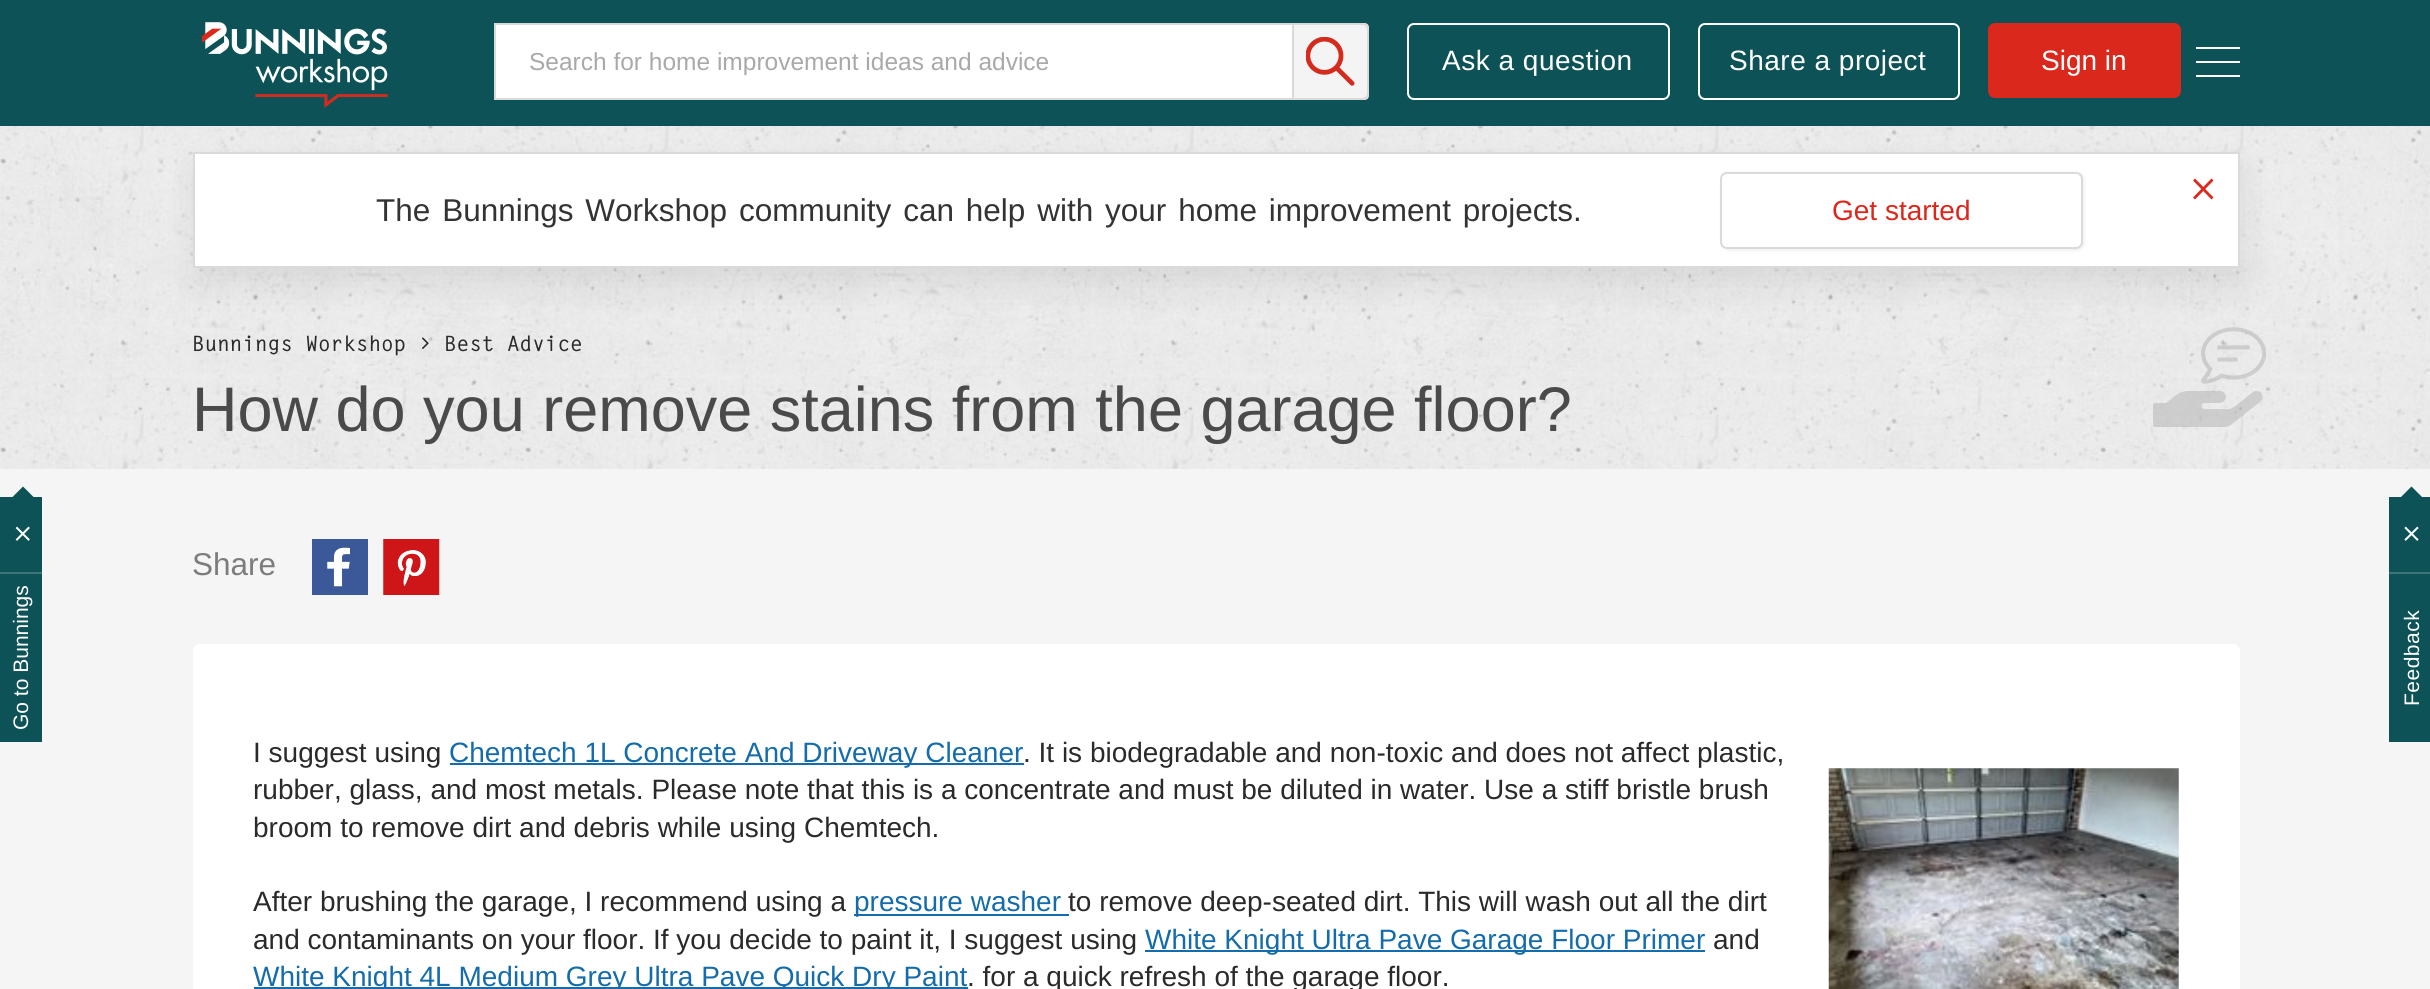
#include <cairo/cairo.h>
#include <math.h>
#include <stddef.h>

typedef struct { double x, y; const char *s; } line_t;
typedef struct { double x, y, w, h; unsigned color; } box_t;
static cairo_t *cr;

static void rgb(unsigned color)
{
	cairo_set_source_rgb(cr, (color >> 16) / 255.0, (color >> 8 & 255) / 255.0, (color & 255) / 255.0);
}

static void tracked(double x, double y, const char *s, double letter, double word)
{
	cairo_move_to(cr, x, y);
	while (*s) {
		char ch[5] = {0};
		int n = 0;
		do ch[n++] = *s++; while ((*s & 0xC0) == 0x80);
		cairo_show_text(cr, ch);
		cairo_rel_move_to(cr, letter + word * (*ch == ' '), 0);
	}
}

static void rrect(double x, double y, double w, double h, double r)
{
	cairo_new_sub_path(cr);
	cairo_arc(cr, x + w - r, y + h - r, r, 0, M_PI / 2);
	cairo_arc(cr, x + r, y + h - r, r, M_PI / 2, M_PI);
	cairo_arc(cr, x + r, y + r, r, M_PI, 1.5 * M_PI);
	cairo_arc(cr, x + w - r, y + r, r, 1.5 * M_PI, 2 * M_PI);
	cairo_close_path(cr);
}

static void soft_shadow(double x, double y, double w, double h, double r, double blur, double alpha)
{
	cairo_push_group_with_content(cr, CAIRO_CONTENT_ALPHA);
	cairo_set_operator(cr, CAIRO_OPERATOR_SOURCE);
	for (int i = 15; i >= -15 && fmin(w, h) + blur * i / 3 > 0; i -= 2) {
		double e = blur * i / 6;
		cairo_set_source_rgba(cr, 0, 0, 0, alpha * erfc((i - 1) / 8.5) / 2);
		rrect(x - e, y - e, w + 2 * e, h + 2 * e, fmax(0, fmin(r + e + blur * .6, fmin(w, h) / 2 + e)));
		cairo_fill(cr);
	}
	cairo_pattern_t *soft = cairo_pop_group(cr);
	cairo_mask(cr, soft);
	cairo_pattern_destroy(soft);
}

static void image(const char *path, double x, double y, double w, double h)
{
	cairo_surface_t *image = cairo_image_surface_create_from_png(path);
	cairo_save(cr);
	cairo_set_source_surface(cr, image, x, y);
	cairo_rectangle(cr, x, y, w, h);
	cairo_fill(cr);
	cairo_restore(cr);
	cairo_surface_destroy(image);
}

int main(void) {
	cairo_surface_t *surface = cairo_image_surface_create(CAIRO_FORMAT_RGB24, 2430, 989);
	cr = cairo_create(surface);
	cairo_font_options_t *options = cairo_font_options_create();
	cairo_font_options_set_hint_metrics(options, CAIRO_HINT_METRICS_OFF);
	cairo_font_options_set_hint_style(options, CAIRO_HINT_STYLE_NONE);
	cairo_set_font_options(cr, options);
	cairo_set_miter_limit(cr, 4);
	rgb(0xf5f5f5);
	cairo_paint(cr);
	rgb(0x0d5257);
	cairo_rectangle(cr, 0, 497, 42, 245);
	cairo_fill(cr);
	cairo_new_path(cr);
	cairo_move_to(cr, 37, 500.5);
	cairo_line_to(cr, 9, 500.5);
	cairo_line_to(cr, 23, 486.5);
	cairo_close_path(cr);
	cairo_fill(cr);
	image("img/1.png", 15, 526, 15, 15);
	rgb(0x3d7579);
	cairo_rectangle(cr, 0, 572, 42, 2);
	cairo_fill(cr);
	image("img/4.png", 0, 126, 2430, 343);
	rgb(0x000000);
	soft_shadow(194, 170, 2048, 115, 0, 17.5, 0.08);
	rgb(0x0d5257);
	cairo_rectangle(cr, 0, 0, 2430, 126);
	cairo_fill(cr);
	image("img/2.png", 202, 22, 186, 86);
	rgb(0xffffff);
	cairo_new_path(cr);
	cairo_move_to(cr, 495, 24);
	cairo_line_to(cr, 1365, 24);
	cairo_curve_to(cr, 1366.5, 24, 1368, 25.5, 1368, 27);
	cairo_line_to(cr, 1368, 96);
	cairo_curve_to(cr, 1368, 97.5, 1366.5, 99, 1365, 99);
	cairo_line_to(cr, 495, 99);
	cairo_close_path(cr);
	cairo_fill_preserve(cr);
	rgb(0xdadada);
	cairo_stroke(cr);
	rgb(0xf4f4f4);
	cairo_new_path(cr);
	cairo_move_to(cr, 1292, 23);
	cairo_line_to(cr, 1362, 23);
	cairo_curve_to(cr, 1366, 23, 1369, 26, 1369, 30);
	cairo_line_to(cr, 1369, 93);
	cairo_curve_to(cr, 1369, 97, 1366, 100, 1362, 100);
	cairo_line_to(cr, 1292, 100);
	cairo_close_path(cr);
	cairo_fill(cr);
	image("img/3.png", 1306, 37, 49, 49);
	cairo_new_path(cr);
	cairo_move_to(cr, 1293, 24);
	cairo_line_to(cr, 1362, 24);
	cairo_curve_to(cr, 1365.5, 24, 1368, 26.5, 1368, 30);
	cairo_line_to(cr, 1368, 93);
	cairo_curve_to(cr, 1368, 96.5, 1365.5, 99, 1362, 99);
	cairo_line_to(cr, 1293, 99);
	cairo_close_path(cr);
	rgb(0xdadada);
	cairo_stroke(cr);
	rrect(1408, 24, 261, 75, 6);
	rgb(0xffffff);
	cairo_stroke(cr);
	rrect(1699, 24, 260, 75, 6);
	cairo_stroke(cr);
	rgb(0xda291c);
	rrect(1989, 24, 191, 73, 6);
	cairo_fill_preserve(cr);
	cairo_stroke(cr);
	{
		static const box_t items[] = {
			{2196, 47, 44, 2, 0xffffff},
			{2196, 61, 44, 2, 0xffffff},
			{2196, 75, 44, 2, 0xffffff},
		};
		for (size_t i = 0; i < sizeof items / sizeof *items; i++) {
			rgb(items[i].color);
			cairo_rectangle(cr, items[i].x, items[i].y, items[i].w, items[i].h);
			cairo_fill(cr);
		}
	}
	cairo_rectangle(cr, 194, 153, 2045, 114);
	cairo_fill_preserve(cr);
	rgb(0xdadada);
	cairo_stroke(cr);
	rgb(0xda291c);
	cairo_new_path(cr);
	cairo_move_to(cr, 2193, 197.5);
	cairo_line_to(cr, 2195, 199.5);
	cairo_line_to(cr, 2213.5, 180.5);
	cairo_line_to(cr, 2211.5, 178.5);
	cairo_close_path(cr);
	cairo_fill(cr);
	cairo_new_path(cr);
	cairo_move_to(cr, 2193, 180.5);
	cairo_line_to(cr, 2211.5, 199.5);
	cairo_line_to(cr, 2213.5, 197.5);
	cairo_line_to(cr, 2195, 178.5);
	cairo_close_path(cr);
	cairo_fill(cr);
	rgb(0x000000);
	soft_shadow(1722, 173, 362, 77, 7, 2, 0.08);
	rgb(0xffffff);
	rrect(1721, 173, 361, 75, 6);
	cairo_fill_preserve(cr);
	rgb(0xdadada);
	cairo_stroke(cr);
	image("img/5.png", 421, 337, 8, 12);
	image("img/6.png", 2153, 327, 113, 100);
	rgb(0x3b5998);
	cairo_rectangle(cr, 312, 539, 56, 56);
	cairo_fill(cr);
	image("img/7.png", 327, 547, 23, 40);
	image("img/8.png", 383, 539, 57, 56);
	rgb(0xffffff);
	rrect(193, 644, 2047, 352, 7);
	cairo_fill(cr);
	rgb(0x146cac);
	cairo_rectangle(cr, 450, 763, 574, 2);
	cairo_fill(cr);
	image("img/9.png", 1828, 768, 351, 221);
	{
		static const box_t items[] = {
			{854, 914, 215, 2, 0x146cac},
			{1145, 950, 560, 2, 0x146cac},
			{254, 987, 714, 2, 0x146cac},
			{2389, 497, 41, 245, 0x0d5257},
		};
		for (size_t i = 0; i < sizeof items / sizeof *items; i++) {
			rgb(items[i].color);
			cairo_rectangle(cr, items[i].x, items[i].y, items[i].w, items[i].h);
			cairo_fill(cr);
		}
	}
	cairo_new_path(cr);
	cairo_move_to(cr, 2425.5, 500.5);
	cairo_line_to(cr, 2397.5, 500.5);
	cairo_line_to(cr, 2411.5, 486.5);
	cairo_close_path(cr);
	cairo_fill(cr);
	image("img/10.png", 2404, 526, 15, 15);
	rgb(0x3d7579);
	cairo_rectangle(cr, 2389, 572, 41, 2);
	cairo_fill(cr);
	cairo_select_font_face(cr, "Liberation Sans", CAIRO_FONT_SLANT_NORMAL, CAIRO_FONT_WEIGHT_NORMAL);
	cairo_set_font_size(cr, 21);
	rgb(0xffffff);
	cairo_save(cr);
	cairo_translate(cr, 28, 730);
	cairo_rotate(cr, -90 * M_PI / 180);
	cairo_move_to(cr, 0, 0);
	cairo_show_text(cr, "Go to Bunnings");
	cairo_restore(cr);
	cairo_set_font_size(cr, 24.5);
	rgb(0xa9a9a9);
	cairo_move_to(cr, 529, 70);
	cairo_show_text(cr, "Search for home improvement ideas and advice");
	cairo_set_font_size(cr, 28);
	rgb(0xffffff);
	tracked(1442, 70, "Ask a question", 0.5, 0);
	tracked(1729, 70, "Share a project", 0.5, 0);
	cairo_move_to(cr, 2041, 70);
	cairo_show_text(cr, "Sign in");
	cairo_set_font_size(cr, 31.5);
	rgb(0x333333);
	tracked(376, 221, "The Bunnings Workshop community can help with your home improvement projects.", 0, 3.1);
	cairo_set_font_size(cr, 28);
	rgb(0xda291c);
	cairo_move_to(cr, 1832, 220);
	cairo_show_text(cr, "Get started");
	cairo_select_font_face(cr, "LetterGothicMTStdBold", CAIRO_FONT_SLANT_NORMAL, CAIRO_FONT_WEIGHT_BOLD);
	cairo_set_font_size(cr, 21);
	rgb(0x2a2a2a);
	cairo_move_to(cr, 192, 351);
	cairo_show_text(cr, "Bunnings Workshop");
	cairo_move_to(cr, 444, 351);
	cairo_show_text(cr, "Best Advice");
	cairo_select_font_face(cr, "Liberation Sans", CAIRO_FONT_SLANT_NORMAL, CAIRO_FONT_WEIGHT_NORMAL);
	cairo_set_font_size(cr, 63);
	rgb(0x4a4a4a);
	cairo_move_to(cr, 192, 431);
	cairo_show_text(cr, "How do you remove stains from the garage floor?");
	cairo_set_font_size(cr, 31.5);
	rgb(0x7c7c7c);
	cairo_move_to(cr, 192, 575);
	cairo_show_text(cr, "Share");
	cairo_set_font_size(cr, 28);
	rgb(0x2a2a2a);
	cairo_move_to(cr, 253, 762);
	cairo_show_text(cr, "I suggest using");
	rgb(0x146cac);
	cairo_move_to(cr, 449, 762);
	cairo_show_text(cr, "Chemtech 1L Concrete And Driveway Cleaner");
	rgb(0x2a2a2a);
	{
		static const line_t items[] = {
			{1023, 762, ". It is biodegradable and non-toxic and does not affect plastic,"},
			{253, 799, "rubber, glass, and most metals. Please note that this is a concentrate and must be diluted in water. Use a stiff bristle brush"},
			{253, 837, "broom to remove dirt and debris while using Chemtech."},
			{253, 911, "After brushing the garage, I recommend using a"},
		};
		for (size_t i = 0; i < sizeof items / sizeof *items; i++) {
			cairo_move_to(cr, items[i].x, items[i].y);
			cairo_show_text(cr, items[i].s);
		}
	}
	rgb(0x146cac);
	cairo_move_to(cr, 854, 911);
	cairo_show_text(cr, "pressure washer");
	rgb(0x2a2a2a);
	cairo_move_to(cr, 1068, 911);
	cairo_show_text(cr, "to remove deep-seated dirt. This will wash out all the dirt");
	cairo_move_to(cr, 253, 949);
	cairo_show_text(cr, "and contaminants on your floor. If you decide to paint it, I suggest using");
	rgb(0x146cac);
	cairo_move_to(cr, 1145, 949);
	cairo_show_text(cr, "White Knight Ultra Pave Garage Floor Primer");
	rgb(0x2a2a2a);
	cairo_move_to(cr, 1713, 949);
	cairo_show_text(cr, "and");
	rgb(0x146cac);
	cairo_move_to(cr, 253, 986);
	cairo_show_text(cr, "White Knight 4L Medium Grey Ultra Pave Quick Dry Paint");
	rgb(0x2a2a2a);
	cairo_move_to(cr, 967, 986);
	cairo_show_text(cr, ". for a quick refresh of the garage floor.");
	cairo_set_font_size(cr, 21);
	rgb(0xffffff);
	cairo_save(cr);
	cairo_translate(cr, 2419, 706);
	cairo_rotate(cr, -90 * M_PI / 180);
	tracked(0, 0, "Feedback", 0.5, 0);
	cairo_restore(cr);
	cairo_surface_write_to_png(surface, "page.png");
	cairo_font_options_destroy(options);
	cairo_destroy(cr);
	cairo_surface_destroy(surface);
	return 0;
}
